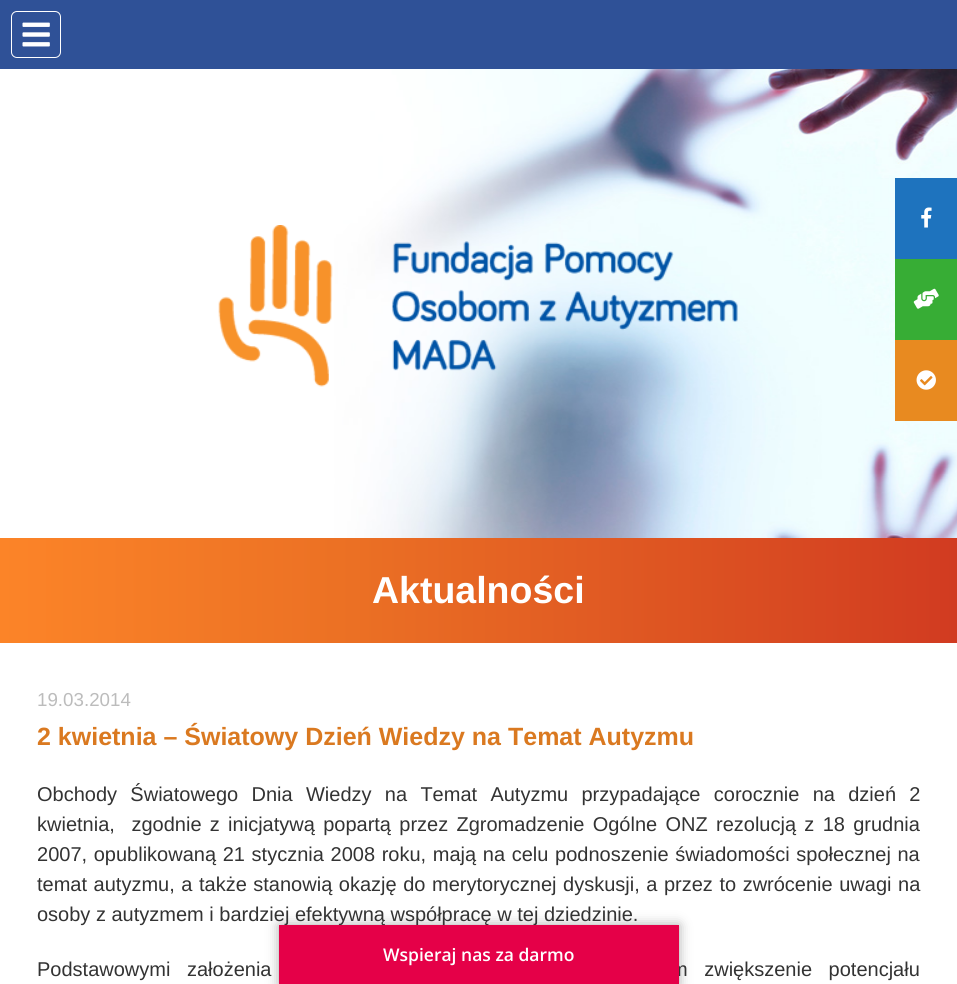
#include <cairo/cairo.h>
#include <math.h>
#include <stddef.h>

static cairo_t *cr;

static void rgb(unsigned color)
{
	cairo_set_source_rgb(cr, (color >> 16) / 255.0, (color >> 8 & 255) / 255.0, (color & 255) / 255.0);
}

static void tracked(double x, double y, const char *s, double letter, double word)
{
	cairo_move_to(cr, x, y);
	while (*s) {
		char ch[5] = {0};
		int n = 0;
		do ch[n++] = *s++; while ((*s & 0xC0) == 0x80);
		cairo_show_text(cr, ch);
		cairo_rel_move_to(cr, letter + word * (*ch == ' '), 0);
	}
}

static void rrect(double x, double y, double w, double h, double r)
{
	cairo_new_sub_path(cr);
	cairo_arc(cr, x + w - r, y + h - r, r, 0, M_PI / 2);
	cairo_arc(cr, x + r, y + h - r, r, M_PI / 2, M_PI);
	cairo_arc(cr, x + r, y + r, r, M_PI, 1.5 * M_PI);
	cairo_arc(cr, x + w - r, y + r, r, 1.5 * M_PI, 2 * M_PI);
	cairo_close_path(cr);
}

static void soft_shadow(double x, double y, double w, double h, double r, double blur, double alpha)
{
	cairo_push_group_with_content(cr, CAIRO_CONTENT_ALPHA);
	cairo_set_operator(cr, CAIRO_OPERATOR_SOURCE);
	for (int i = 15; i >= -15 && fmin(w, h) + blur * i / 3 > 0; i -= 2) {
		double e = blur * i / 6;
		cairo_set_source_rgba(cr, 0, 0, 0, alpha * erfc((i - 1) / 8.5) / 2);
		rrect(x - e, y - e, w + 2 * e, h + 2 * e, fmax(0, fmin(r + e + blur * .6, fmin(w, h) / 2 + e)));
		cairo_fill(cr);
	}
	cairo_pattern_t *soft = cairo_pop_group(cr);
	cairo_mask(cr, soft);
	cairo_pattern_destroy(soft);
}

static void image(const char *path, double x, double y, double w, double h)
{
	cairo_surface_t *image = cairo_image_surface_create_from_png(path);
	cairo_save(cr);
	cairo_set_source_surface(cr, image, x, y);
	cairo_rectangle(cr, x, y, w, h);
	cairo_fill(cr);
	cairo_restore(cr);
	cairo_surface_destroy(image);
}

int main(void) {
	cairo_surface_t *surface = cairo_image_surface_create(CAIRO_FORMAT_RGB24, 957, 984);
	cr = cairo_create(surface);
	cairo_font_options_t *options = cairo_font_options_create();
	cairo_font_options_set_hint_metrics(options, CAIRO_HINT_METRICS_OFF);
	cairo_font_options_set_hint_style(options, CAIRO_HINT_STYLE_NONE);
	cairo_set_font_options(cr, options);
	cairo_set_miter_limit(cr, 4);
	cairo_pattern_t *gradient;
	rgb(0xffffff);
	cairo_paint(cr);
	rgb(0x2f5197);
	cairo_rectangle(cr, 0, 0, 957, 69);
	cairo_fill(cr);
	rrect(11.5, 11.5, 49, 46, 5.5);
	rgb(0xffffff);
	cairo_set_line_width(cr, 1);
	cairo_stroke(cr);
	image("img/1.png", 22, 22, 28, 25);
	image("img/5.png", 0, 69, 957, 469);
	rgb(0x1e73be);
	cairo_rectangle(cr, 895, 178, 62, 81);
	cairo_fill(cr);
	image("img/2.png", 921, 207, 11, 21);
	rgb(0x37ad35);
	cairo_rectangle(cr, 895, 259, 62, 81);
	cairo_fill(cr);
	image("img/3.png", 913, 288, 26, 21);
	rgb(0xe88a20);
	cairo_rectangle(cr, 895, 340, 62, 81);
	cairo_fill(cr);
	image("img/4.png", 916, 370, 20, 20);
	image("img/6.png", 218, 225, 520, 162);
	gradient = cairo_pattern_create_linear(0, 590, 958, 590);
	cairo_pattern_add_color_stop_rgba(gradient, 0, 0.988, 0.518, 0.157, 1);
	cairo_pattern_add_color_stop_rgba(gradient, 0.37, 0.922, 0.439, 0.141, 1);
	cairo_pattern_add_color_stop_rgba(gradient, 1, 0.82, 0.231, 0.129, 1);
	cairo_set_source(cr, gradient);
	cairo_pattern_destroy(gradient);
	cairo_rectangle(cr, 0, 538, 957, 105);
	cairo_fill(cr);
	rgb(0xaaaaaa);
	soft_shadow(279, 925, 400, 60, 0, 6, 1);
	cairo_select_font_face(cr, "Liberation Sans", CAIRO_FONT_SLANT_NORMAL, CAIRO_FONT_WEIGHT_BOLD);
	cairo_set_font_size(cr, 37.5);
	rgb(0xffffff);
	cairo_move_to(cr, 372, 603);
	cairo_show_text(cr, "Aktualności");
	cairo_select_font_face(cr, "Liberation Sans", CAIRO_FONT_SLANT_NORMAL, CAIRO_FONT_WEIGHT_NORMAL);
	cairo_set_font_size(cr, 18.75);
	rgb(0xbcbcbc);
	cairo_move_to(cr, 37, 706);
	cairo_show_text(cr, "19.03.2014");
	cairo_select_font_face(cr, "Liberation Sans", CAIRO_FONT_SLANT_NORMAL, CAIRO_FONT_WEIGHT_BOLD);
	cairo_set_font_size(cr, 25);
	rgb(0xda7920);
	cairo_move_to(cr, 37, 745);
	cairo_show_text(cr, "2 kwietnia – Światowy Dzień Wiedzy na Temat Autyzmu");
	cairo_select_font_face(cr, "Liberation Sans", CAIRO_FONT_SLANT_NORMAL, CAIRO_FONT_WEIGHT_NORMAL);
	cairo_set_font_size(cr, 20);
	rgb(0x333333);
	tracked(37, 801, "Obchody Światowego Dnia Wiedzy na Temat Autyzmu przypadające corocznie na dzień 2", 0, 7.75);
	tracked(37, 831, "kwietnia,  zgodnie z inicjatywą popartą przez Zgromadzenie Ogólne ONZ rezolucją z 18 grudnia", 0, 2.75);
	tracked(37, 861, "2007, opublikowaną 21 stycznia 2008 roku, mają na celu podnoszenie świadomości społecznej na", 0, 1.1);
	tracked(37, 891, "temat autyzmu, a także stanowią okazję do merytorycznej dyskusji, a przez to zwrócenie uwagi na", 0, 1);
	cairo_move_to(cr, 37, 921);
	cairo_show_text(cr, "osoby z autyzmem i bardziej efektywną współpracę w tej dziedzinie.");
	tracked(37, 976, "Podstawowymi założenia", 0, 11);
	tracked(671, 976, "m zwiększenie potencjału", 0, 11);
	rgb(0xe50048);
	cairo_rectangle(cr, 279, 925, 400, 59);
	cairo_fill(cr);
	cairo_select_font_face(cr, "Open Sans SemiBold", CAIRO_FONT_SLANT_NORMAL, CAIRO_FONT_WEIGHT_NORMAL);
	cairo_set_font_size(cr, 17.5);
	rgb(0xffffff);
	cairo_move_to(cr, 383, 961);
	cairo_show_text(cr, "Wspieraj nas za darmo");
	cairo_surface_write_to_png(surface, "page.png");
	cairo_font_options_destroy(options);
	cairo_destroy(cr);
	cairo_surface_destroy(surface);
	return 0;
}
